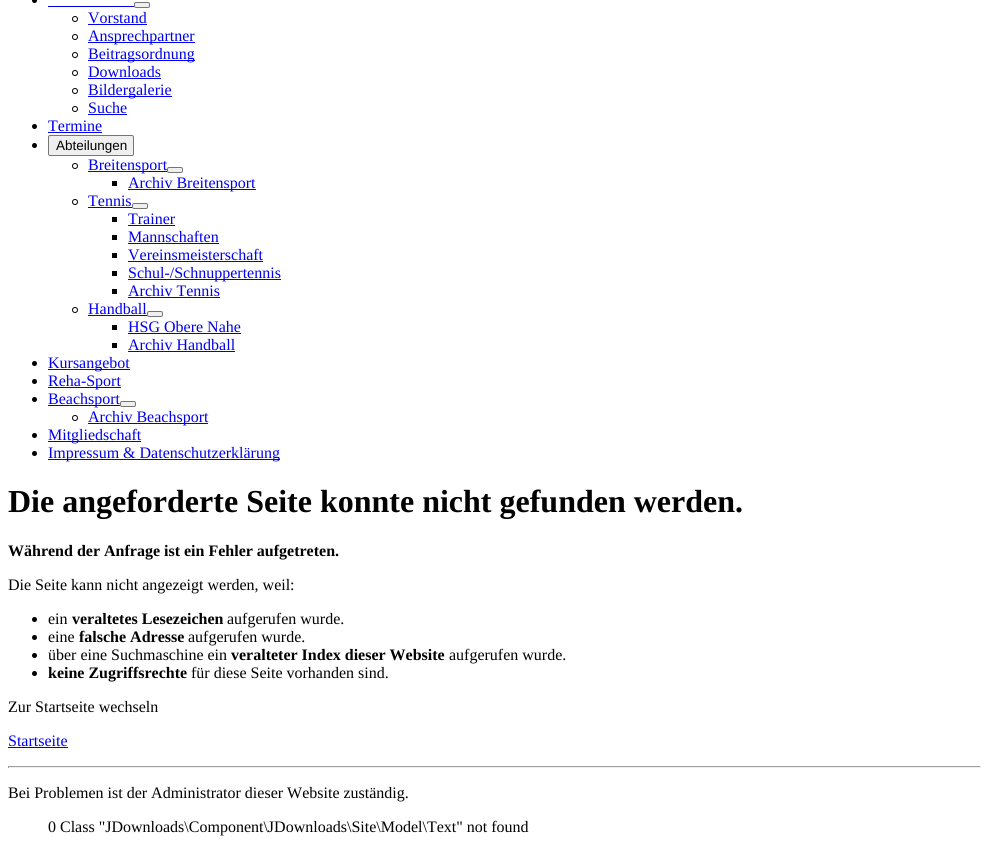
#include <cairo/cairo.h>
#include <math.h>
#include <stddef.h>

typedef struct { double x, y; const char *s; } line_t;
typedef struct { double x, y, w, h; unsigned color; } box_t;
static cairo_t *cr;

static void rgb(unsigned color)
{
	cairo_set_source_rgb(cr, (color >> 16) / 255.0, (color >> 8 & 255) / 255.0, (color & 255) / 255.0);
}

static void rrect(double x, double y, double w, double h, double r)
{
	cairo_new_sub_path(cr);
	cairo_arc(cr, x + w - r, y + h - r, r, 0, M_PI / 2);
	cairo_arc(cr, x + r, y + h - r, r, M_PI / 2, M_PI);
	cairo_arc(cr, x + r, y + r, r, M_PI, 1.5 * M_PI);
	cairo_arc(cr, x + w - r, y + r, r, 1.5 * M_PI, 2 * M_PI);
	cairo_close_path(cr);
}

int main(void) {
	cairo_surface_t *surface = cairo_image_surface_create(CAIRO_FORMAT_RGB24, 989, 844);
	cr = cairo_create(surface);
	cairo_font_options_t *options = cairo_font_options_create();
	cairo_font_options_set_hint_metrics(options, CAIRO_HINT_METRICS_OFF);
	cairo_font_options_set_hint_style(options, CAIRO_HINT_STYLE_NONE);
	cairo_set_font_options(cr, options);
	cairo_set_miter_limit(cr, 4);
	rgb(0xffffff);
	cairo_paint(cr);
	rgb(0x000000);
	cairo_arc(cr, 34.5, 0.5, 2.5, 0, 2 * M_PI);
	cairo_fill(cr);
	rgb(0x0000ee);
	cairo_rectangle(cr, 48, 6, 86, 1);
	cairo_fill(cr);
	rgb(0xefefef);
	rrect(134.5, 2.5, 15, 5, 1.5);
	cairo_fill_preserve(cr);
	rgb(0x767676);
	cairo_set_line_width(cr, 1);
	cairo_stroke(cr);
	cairo_arc(cr, 75, 19, 2.5, 0, 2 * M_PI);
	rgb(0x000000);
	cairo_stroke(cr);
	rgb(0x0000ee);
	cairo_rectangle(cr, 88, 24, 59, 1);
	cairo_fill(cr);
	cairo_arc(cr, 75, 37, 2.5, 0, 2 * M_PI);
	rgb(0x000000);
	cairo_stroke(cr);
	rgb(0x0000ee);
	cairo_rectangle(cr, 88, 42, 107, 1);
	cairo_fill(cr);
	cairo_arc(cr, 75, 55, 2.5, 0, 2 * M_PI);
	rgb(0x000000);
	cairo_stroke(cr);
	rgb(0x0000ee);
	cairo_rectangle(cr, 88, 60, 107, 1);
	cairo_fill(cr);
	cairo_arc(cr, 75, 73, 2.5, 0, 2 * M_PI);
	rgb(0x000000);
	cairo_stroke(cr);
	rgb(0x0000ee);
	cairo_rectangle(cr, 88, 78, 73, 1);
	cairo_fill(cr);
	cairo_arc(cr, 75, 91, 2.5, 0, 2 * M_PI);
	rgb(0x000000);
	cairo_stroke(cr);
	rgb(0x0000ee);
	cairo_rectangle(cr, 88, 96, 84, 1);
	cairo_fill(cr);
	cairo_arc(cr, 75, 109, 2.5, 0, 2 * M_PI);
	rgb(0x000000);
	cairo_stroke(cr);
	rgb(0x0000ee);
	cairo_rectangle(cr, 88, 114, 39, 1);
	cairo_fill(cr);
	rgb(0x000000);
	cairo_arc(cr, 34.5, 126.5, 2.5, 0, 2 * M_PI);
	cairo_fill(cr);
	rgb(0x0000ee);
	cairo_rectangle(cr, 48, 132, 54, 1);
	cairo_fill(cr);
	rgb(0x000000);
	cairo_arc(cr, 34.5, 145.5, 2.5, 0, 2 * M_PI);
	cairo_fill(cr);
	rgb(0xefefef);
	rrect(48.5, 135.5, 85, 20, 1.5);
	cairo_fill_preserve(cr);
	rgb(0x767676);
	cairo_stroke(cr);
	cairo_arc(cr, 75, 166, 2.5, 0, 2 * M_PI);
	rgb(0x000000);
	cairo_stroke(cr);
	rgb(0x0000ee);
	cairo_rectangle(cr, 88, 171, 79, 1);
	cairo_fill(cr);
	rgb(0xefefef);
	rrect(167.5, 167.5, 15, 5, 1.5);
	cairo_fill_preserve(cr);
	rgb(0x767676);
	cairo_stroke(cr);
	rgb(0x000000);
	cairo_rectangle(cr, 112, 181, 5, 5);
	cairo_fill(cr);
	rgb(0x0000ee);
	cairo_rectangle(cr, 128, 189, 128, 1);
	cairo_fill(cr);
	cairo_arc(cr, 75, 202, 2.5, 0, 2 * M_PI);
	rgb(0x000000);
	cairo_stroke(cr);
	rgb(0x0000ee);
	cairo_rectangle(cr, 88, 207, 44, 1);
	cairo_fill(cr);
	rgb(0xefefef);
	rrect(132.5, 203.5, 15, 5, 1.5);
	cairo_fill_preserve(cr);
	rgb(0x767676);
	cairo_stroke(cr);
	{
		static const box_t items[] = {
			{112, 217, 5, 5, 0x000000},
			{128, 225, 47, 1, 0x0000ee},
			{112, 235, 5, 5, 0x000000},
			{128, 243, 91, 1, 0x0000ee},
			{112, 253, 5, 5, 0x000000},
			{128, 261, 135, 1, 0x0000ee},
			{112, 271, 5, 5, 0x000000},
			{128, 279, 153, 1, 0x0000ee},
			{112, 289, 5, 5, 0x000000},
			{128, 297, 92, 1, 0x0000ee},
		};
		for (size_t i = 0; i < sizeof items / sizeof *items; i++) {
			rgb(items[i].color);
			cairo_rectangle(cr, items[i].x, items[i].y, items[i].w, items[i].h);
			cairo_fill(cr);
		}
	}
	cairo_arc(cr, 75, 310, 2.5, 0, 2 * M_PI);
	rgb(0x000000);
	cairo_stroke(cr);
	rgb(0x0000ee);
	cairo_rectangle(cr, 88, 315, 59, 1);
	cairo_fill(cr);
	rgb(0xefefef);
	rrect(147.5, 311.5, 15, 5, 1.5);
	cairo_fill_preserve(cr);
	rgb(0x767676);
	cairo_stroke(cr);
	{
		static const box_t items[] = {
			{112, 325, 5, 5, 0x000000},
			{128, 333, 113, 1, 0x0000ee},
			{112, 343, 5, 5, 0x000000},
			{128, 351, 107, 1, 0x0000ee},
		};
		for (size_t i = 0; i < sizeof items / sizeof *items; i++) {
			rgb(items[i].color);
			cairo_rectangle(cr, items[i].x, items[i].y, items[i].w, items[i].h);
			cairo_fill(cr);
		}
	}
	rgb(0x000000);
	cairo_arc(cr, 34.5, 363.5, 2.5, 0, 2 * M_PI);
	cairo_fill(cr);
	rgb(0x0000ee);
	cairo_rectangle(cr, 48, 369, 82, 1);
	cairo_fill(cr);
	rgb(0x000000);
	cairo_arc(cr, 34.5, 381.5, 2.5, 0, 2 * M_PI);
	cairo_fill(cr);
	rgb(0x0000ee);
	cairo_rectangle(cr, 48, 387, 73, 1);
	cairo_fill(cr);
	rgb(0x000000);
	cairo_arc(cr, 34.5, 399.5, 2.5, 0, 2 * M_PI);
	cairo_fill(cr);
	rgb(0x0000ee);
	cairo_rectangle(cr, 48, 405, 72, 1);
	cairo_fill(cr);
	rgb(0xefefef);
	rrect(120.5, 401.5, 15, 5, 1.5);
	cairo_fill_preserve(cr);
	rgb(0x767676);
	cairo_stroke(cr);
	cairo_arc(cr, 75, 418, 2.5, 0, 2 * M_PI);
	rgb(0x000000);
	cairo_stroke(cr);
	rgb(0x0000ee);
	cairo_rectangle(cr, 88, 423, 120, 1);
	cairo_fill(cr);
	rgb(0x000000);
	cairo_arc(cr, 34.5, 435.5, 2.5, 0, 2 * M_PI);
	cairo_fill(cr);
	rgb(0x0000ee);
	cairo_rectangle(cr, 48, 441, 93, 1);
	cairo_fill(cr);
	rgb(0x000000);
	cairo_arc(cr, 34.5, 453.5, 2.5, 0, 2 * M_PI);
	cairo_fill(cr);
	rgb(0x0000ee);
	cairo_rectangle(cr, 48, 459, 232, 1);
	cairo_fill(cr);
	rgb(0x000000);
	cairo_arc(cr, 34.5, 619.5, 2.5, 0, 2 * M_PI);
	cairo_fill(cr);
	cairo_arc(cr, 34.5, 637.5, 2.5, 0, 2 * M_PI);
	cairo_fill(cr);
	cairo_arc(cr, 34.5, 655.5, 2.5, 0, 2 * M_PI);
	cairo_fill(cr);
	cairo_arc(cr, 34.5, 673.5, 2.5, 0, 2 * M_PI);
	cairo_fill(cr);
	{
		static const box_t items[] = {
			{8, 747, 60, 1, 0x0000ee},
			{8, 766, 973, 1, 0x9f9f9f},
			{980, 766, 1, 2, 0xeeeeee},
			{8, 767, 973, 1, 0xeeeeee},
			{8, 766, 1, 2, 0x9f9f9f},
		};
		for (size_t i = 0; i < sizeof items / sizeof *items; i++) {
			rgb(items[i].color);
			cairo_rectangle(cr, items[i].x, items[i].y, items[i].w, items[i].h);
			cairo_fill(cr);
		}
	}
	cairo_select_font_face(cr, "Liberation Serif", CAIRO_FONT_SLANT_NORMAL, CAIRO_FONT_WEIGHT_NORMAL);
	cairo_set_font_size(cr, 16);
	rgb(0x0000ee);
	{
		static const line_t items[] = {
			{88, 23, "Vorstand"},
			{88, 41, "Ansprechpartner"},
			{88, 59, "Beitragsordnung"},
			{88, 77, "Downloads"},
			{88, 95, "Bildergalerie"},
			{88, 113, "Suche"},
			{48, 131, "Termine"},
		};
		for (size_t i = 0; i < sizeof items / sizeof *items; i++) {
			cairo_move_to(cr, items[i].x, items[i].y);
			cairo_show_text(cr, items[i].s);
		}
	}
	cairo_select_font_face(cr, "Liberation Sans", CAIRO_FONT_SLANT_NORMAL, CAIRO_FONT_WEIGHT_NORMAL);
	cairo_set_font_size(cr, 13.5);
	rgb(0x000000);
	cairo_move_to(cr, 56, 150);
	cairo_show_text(cr, "Abteilungen");
	cairo_select_font_face(cr, "Liberation Serif", CAIRO_FONT_SLANT_NORMAL, CAIRO_FONT_WEIGHT_NORMAL);
	cairo_set_font_size(cr, 16);
	rgb(0x0000ee);
	{
		static const line_t items[] = {
			{88, 170, "Breitensport"},
			{128, 188, "Archiv Breitensport"},
			{88, 206, "Tennis"},
			{128, 224, "Trainer"},
			{128, 242, "Mannschaften"},
			{128, 260, "Vereinsmeisterschaft"},
			{128, 278, "Schul-/Schnuppertennis"},
			{128, 296, "Archiv Tennis"},
			{88, 314, "Handball"},
			{128, 332, "HSG Obere Nahe"},
			{128, 350, "Archiv Handball"},
			{48, 368, "Kursangebot"},
			{48, 386, "Reha-Sport"},
			{48, 404, "Beachsport"},
			{88, 422, "Archiv Beachsport"},
			{48, 440, "Mitgliedschaft"},
			{48, 458, "Impressum & Datenschutzerklärung"},
		};
		for (size_t i = 0; i < sizeof items / sizeof *items; i++) {
			cairo_move_to(cr, items[i].x, items[i].y);
			cairo_show_text(cr, items[i].s);
		}
	}
	cairo_select_font_face(cr, "Liberation Serif", CAIRO_FONT_SLANT_NORMAL, CAIRO_FONT_WEIGHT_BOLD);
	cairo_set_font_size(cr, 32);
	rgb(0x000000);
	cairo_move_to(cr, 8, 512);
	cairo_show_text(cr, "Die angeforderte Seite konnte nicht gefunden werden.");
	cairo_set_font_size(cr, 16);
	cairo_move_to(cr, 8, 556);
	cairo_show_text(cr, "Während der Anfrage ist ein Fehler aufgetreten.");
	cairo_select_font_face(cr, "Liberation Serif", CAIRO_FONT_SLANT_NORMAL, CAIRO_FONT_WEIGHT_NORMAL);
	cairo_move_to(cr, 8, 590);
	cairo_show_text(cr, "Die Seite kann nicht angezeigt werden, weil:");
	cairo_move_to(cr, 48, 624);
	cairo_show_text(cr, "ein");
	cairo_select_font_face(cr, "Liberation Serif", CAIRO_FONT_SLANT_NORMAL, CAIRO_FONT_WEIGHT_BOLD);
	cairo_move_to(cr, 72, 624);
	cairo_show_text(cr, "veraltetes Lesezeichen");
	cairo_select_font_face(cr, "Liberation Serif", CAIRO_FONT_SLANT_NORMAL, CAIRO_FONT_WEIGHT_NORMAL);
	cairo_move_to(cr, 227, 624);
	cairo_show_text(cr, "aufgerufen wurde.");
	cairo_move_to(cr, 48, 642);
	cairo_show_text(cr, "eine");
	cairo_select_font_face(cr, "Liberation Serif", CAIRO_FONT_SLANT_NORMAL, CAIRO_FONT_WEIGHT_BOLD);
	cairo_move_to(cr, 79, 642);
	cairo_show_text(cr, "falsche Adresse");
	cairo_select_font_face(cr, "Liberation Serif", CAIRO_FONT_SLANT_NORMAL, CAIRO_FONT_WEIGHT_NORMAL);
	cairo_move_to(cr, 188, 642);
	cairo_show_text(cr, "aufgerufen wurde.");
	cairo_move_to(cr, 48, 660);
	cairo_show_text(cr, "über eine Suchmaschine ein");
	cairo_select_font_face(cr, "Liberation Serif", CAIRO_FONT_SLANT_NORMAL, CAIRO_FONT_WEIGHT_BOLD);
	cairo_move_to(cr, 231, 660);
	cairo_show_text(cr, "veralteter Index dieser Website");
	cairo_select_font_face(cr, "Liberation Serif", CAIRO_FONT_SLANT_NORMAL, CAIRO_FONT_WEIGHT_NORMAL);
	cairo_move_to(cr, 449, 660);
	cairo_show_text(cr, "aufgerufen wurde.");
	cairo_select_font_face(cr, "Liberation Serif", CAIRO_FONT_SLANT_NORMAL, CAIRO_FONT_WEIGHT_BOLD);
	cairo_move_to(cr, 48, 678);
	cairo_show_text(cr, "keine Zugriffsrechte");
	cairo_select_font_face(cr, "Liberation Serif", CAIRO_FONT_SLANT_NORMAL, CAIRO_FONT_WEIGHT_NORMAL);
	cairo_move_to(cr, 191, 678);
	cairo_show_text(cr, "für diese Seite vorhanden sind.");
	cairo_move_to(cr, 8, 712);
	cairo_show_text(cr, "Zur Startseite wechseln");
	rgb(0x0000ee);
	cairo_move_to(cr, 8, 746);
	cairo_show_text(cr, "Startseite");
	rgb(0x000000);
	cairo_move_to(cr, 8, 798);
	cairo_show_text(cr, "Bei Problemen ist der Administrator dieser Website zuständig.");
	cairo_move_to(cr, 48, 832);
	cairo_show_text(cr, "0 Class \"JDownloads\\Component\\JDownloads\\Site\\Model\\Text\" not found");
	cairo_surface_write_to_png(surface, "page.png");
	cairo_font_options_destroy(options);
	cairo_destroy(cr);
	cairo_surface_destroy(surface);
	return 0;
}
